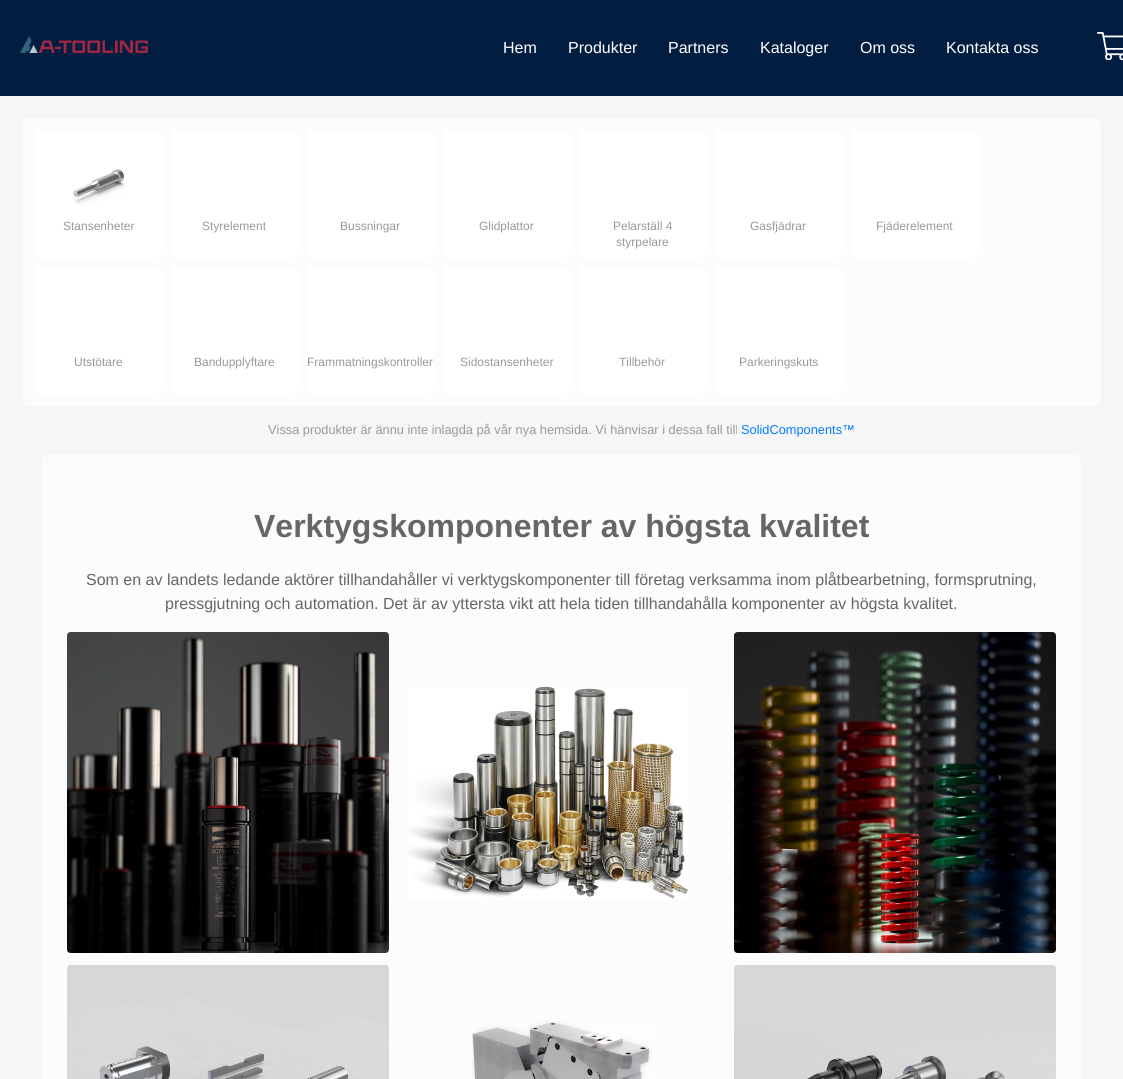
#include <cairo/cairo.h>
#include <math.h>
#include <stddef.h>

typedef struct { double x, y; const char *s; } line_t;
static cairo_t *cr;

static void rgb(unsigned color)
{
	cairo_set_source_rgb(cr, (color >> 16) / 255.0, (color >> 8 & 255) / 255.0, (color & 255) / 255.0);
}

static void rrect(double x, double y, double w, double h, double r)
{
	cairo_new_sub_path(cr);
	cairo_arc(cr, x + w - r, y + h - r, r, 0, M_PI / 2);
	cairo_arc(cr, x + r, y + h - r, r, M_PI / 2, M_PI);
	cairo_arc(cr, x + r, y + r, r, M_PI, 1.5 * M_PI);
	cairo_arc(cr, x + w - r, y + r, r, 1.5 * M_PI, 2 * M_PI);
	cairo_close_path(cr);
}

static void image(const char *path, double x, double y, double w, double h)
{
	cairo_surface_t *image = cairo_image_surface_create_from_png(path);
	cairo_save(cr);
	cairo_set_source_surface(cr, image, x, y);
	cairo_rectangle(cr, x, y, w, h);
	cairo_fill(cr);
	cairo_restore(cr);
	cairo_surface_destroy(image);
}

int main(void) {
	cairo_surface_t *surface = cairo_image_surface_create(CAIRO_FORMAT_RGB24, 1123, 1079);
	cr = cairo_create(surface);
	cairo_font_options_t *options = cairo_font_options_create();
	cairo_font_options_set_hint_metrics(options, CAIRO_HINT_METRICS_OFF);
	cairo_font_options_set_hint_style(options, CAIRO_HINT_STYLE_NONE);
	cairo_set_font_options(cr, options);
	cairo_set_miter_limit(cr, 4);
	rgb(0xf6f6f6);
	cairo_paint(cr);
	rgb(0x011e41);
	cairo_rectangle(cr, 0, 0, 1123, 96);
	cairo_fill(cr);
	image("img/1.png", 20, 36, 128, 17);
	image("img/2.png", 1097, 32, 26, 28);
	rgb(0xfcfcfc);
	rrect(22, 118, 1079, 288, 8);
	cairo_fill(cr);
	rgb(0xffffff);
	rrect(34, 130, 128, 128, 8);
	cairo_fill(cr);
	image("img/3.png", 73, 169, 53, 36);
	rrect(170, 130, 128, 128, 8);
	cairo_fill(cr);
	rrect(306, 130, 128, 128, 8);
	cairo_fill(cr);
	rrect(442, 130, 128, 128, 8);
	cairo_fill(cr);
	rrect(578, 130, 128, 128, 8);
	cairo_fill(cr);
	rrect(714, 130, 128, 128, 8);
	cairo_fill(cr);
	rrect(850, 130, 128, 128, 8);
	cairo_fill(cr);
	rrect(34, 266, 128, 128, 8);
	cairo_fill(cr);
	rrect(170, 266, 128, 128, 8);
	cairo_fill(cr);
	rrect(306, 266, 128, 128, 8);
	cairo_fill(cr);
	rrect(442, 266, 128, 128, 8);
	cairo_fill(cr);
	rrect(578, 266, 128, 128, 8);
	cairo_fill(cr);
	rrect(714, 266, 128, 128, 8);
	cairo_fill(cr);
	rgb(0xfcfcfc);
	rrect(42, 454, 1039, 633, 8);
	cairo_fill(cr);
	image("img/4.png", 67, 632, 322, 321);
	image("img/5.png", 407, 687, 281, 212);
	image("img/6.png", 734, 632, 322, 321);
	image("img/7.png", 67, 965, 322, 114);
	image("img/8.png", 471, 1021, 181, 58);
	image("img/9.png", 734, 965, 322, 114);
	cairo_select_font_face(cr, "Liberation Sans", CAIRO_FONT_SLANT_NORMAL, CAIRO_FONT_WEIGHT_NORMAL);
	cairo_set_font_size(cr, 16);
	rgb(0xffffff);
	{
		static const line_t items[] = {
			{503, 53, "Hem"},
			{568, 53, "Produkter"},
			{668, 53, "Partners"},
			{760, 53, "Kataloger"},
			{860, 53, "Om oss"},
			{946, 53, "Kontakta oss"},
		};
		for (size_t i = 0; i < sizeof items / sizeof *items; i++) {
			cairo_move_to(cr, items[i].x, items[i].y);
			cairo_show_text(cr, items[i].s);
		}
	}
	cairo_set_font_size(cr, 12);
	rgb(0x999999);
	cairo_move_to(cr, 63, 230);
	cairo_show_text(cr, "Stansenheter");
	cairo_save(cr);
	cairo_rectangle(cr, 202, 218, 64, 32);
	cairo_clip(cr);
	cairo_move_to(cr, 202, 230);
	cairo_show_text(cr, "Styrelement");
	cairo_restore(cr);
	{
		static const line_t items[] = {
			{340, 230, "Bussningar"},
			{479, 230, "Glidplattor"},
			{613, 230, "Pelarställ 4"},
			{616, 246, "styrpelare"},
			{750, 230, "Gasfjädrar"},
			{876, 230, "Fjäderelement"},
			{74, 366, "Utstötare"},
			{194, 366, "Bandupplyftare"},
			{307, 366, "Frammatningskontroller"},
			{460, 366, "Sidostansenheter"},
			{619, 366, "Tillbehör"},
			{739, 366, "Parkeringskuts"},
		};
		for (size_t i = 0; i < sizeof items / sizeof *items; i++) {
			cairo_move_to(cr, items[i].x, items[i].y);
			cairo_show_text(cr, items[i].s);
		}
	}
	cairo_set_font_size(cr, 12.8);
	cairo_move_to(cr, 268, 434);
	cairo_show_text(cr, "Vissa produkter är ännu inte inlagda på vår nya hemsida. Vi hänvisar i dessa fall till");
	rgb(0x007bff);
	cairo_move_to(cr, 741, 434);
	cairo_show_text(cr, "SolidComponents™");
	cairo_select_font_face(cr, "Liberation Sans", CAIRO_FONT_SLANT_NORMAL, CAIRO_FONT_WEIGHT_BOLD);
	cairo_set_font_size(cr, 32);
	rgb(0x666666);
	cairo_move_to(cr, 254, 537);
	cairo_show_text(cr, "Verktygskomponenter av högsta kvalitet");
	cairo_select_font_face(cr, "Liberation Sans", CAIRO_FONT_SLANT_NORMAL, CAIRO_FONT_WEIGHT_NORMAL);
	cairo_set_font_size(cr, 16);
	cairo_move_to(cr, 86, 585);
	cairo_show_text(cr, "Som en av landets ledande aktörer tillhandahåller vi verktygskomponenter till företag verksamma inom plåtbearbetning, formsprutning,");
	cairo_move_to(cr, 165, 609);
	cairo_show_text(cr, "pressgjutning och automation. Det är av yttersta vikt att hela tiden tillhandahålla komponenter av högsta kvalitet.");
	cairo_surface_write_to_png(surface, "page.png");
	cairo_font_options_destroy(options);
	cairo_destroy(cr);
	cairo_surface_destroy(surface);
	return 0;
}
